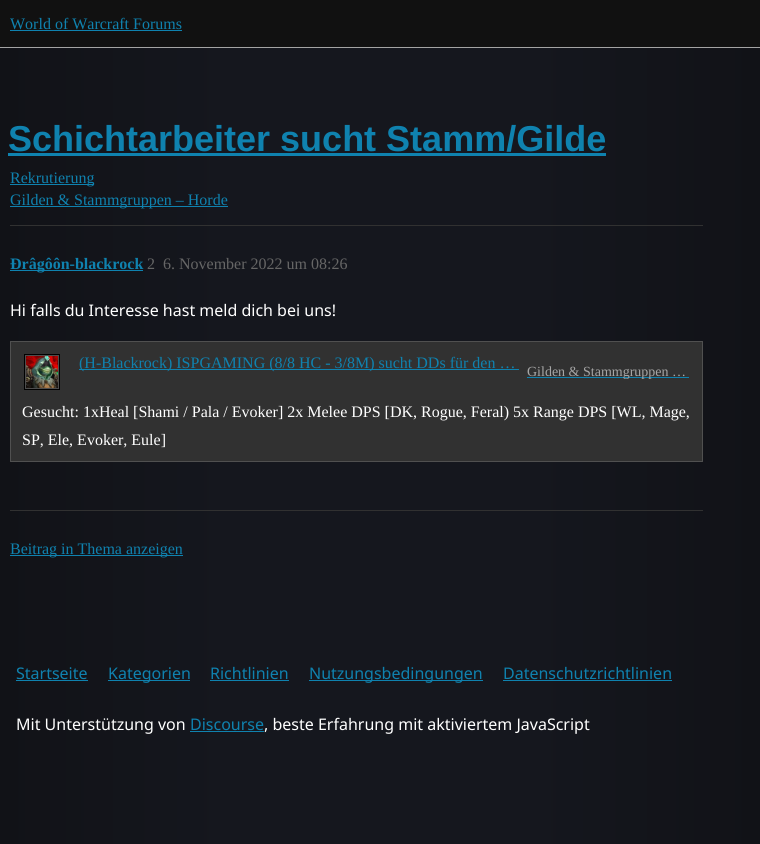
#include <cairo/cairo.h>
#include <math.h>
#include <stddef.h>

typedef struct { double x, y; const char *s; } line_t;
typedef struct { double x, y, w, h; unsigned color; } box_t;
static cairo_t *cr;

static void rgb(unsigned color)
{
	cairo_set_source_rgb(cr, (color >> 16) / 255.0, (color >> 8 & 255) / 255.0, (color & 255) / 255.0);
}

static void image(const char *path, double x, double y, double w, double h)
{
	cairo_surface_t *image = cairo_image_surface_create_from_png(path);
	cairo_save(cr);
	cairo_set_source_surface(cr, image, x, y);
	cairo_rectangle(cr, x, y, w, h);
	cairo_fill(cr);
	cairo_restore(cr);
	cairo_surface_destroy(image);
}

int main(void) {
	cairo_surface_t *surface = cairo_image_surface_create(CAIRO_FORMAT_RGB24, 760, 844);
	cr = cairo_create(surface);
	cairo_font_options_t *options = cairo_font_options_create();
	cairo_font_options_set_hint_metrics(options, CAIRO_HINT_METRICS_OFF);
	cairo_font_options_set_hint_style(options, CAIRO_HINT_STYLE_NONE);
	cairo_set_font_options(cr, options);
	cairo_set_miter_limit(cr, 4);
	cairo_pattern_t *gradient;
	rgb(0xffffff);
	cairo_paint(cr);
	gradient = cairo_pattern_create_linear(0, 422, 760, 422);
	cairo_pattern_add_color_stop_rgba(gradient, 0, 0.067, 0.071, 0.09, 1);
	cairo_pattern_add_color_stop_rgba(gradient, 0.3, 0.082, 0.09, 0.118, 1);
	cairo_pattern_add_color_stop_rgba(gradient, 0.7, 0.082, 0.09, 0.118, 1);
	cairo_pattern_add_color_stop_rgba(gradient, 1, 0.067, 0.071, 0.09, 1);
	cairo_set_source(cr, gradient);
	cairo_pattern_destroy(gradient);
	cairo_rectangle(cr, 0, 48, 760, 796);
	cairo_fill(cr);
	{
		static const box_t items[] = {
			{0, 0, 760, 47, 0x111111},
			{0, 47, 760, 1, 0xa4a4a4},
			{10, 30, 172, 1, 0x0f82af},
			{8, 153, 598, 3, 0x0f82af},
			{10, 184, 84, 1, 0x0f82af},
			{10, 206, 218, 1, 0x0f82af},
			{10, 225, 693, 1, 0x313131},
			{10, 270, 133, 1, 0x0f82af},
			{10, 341, 693, 121, 0x313131},
		};
		for (size_t i = 0; i < sizeof items / sizeof *items; i++) {
			rgb(items[i].color);
			cairo_rectangle(cr, items[i].x, items[i].y, items[i].w, items[i].h);
			cairo_fill(cr);
		}
	}
	rgb(0x505050);
	cairo_new_path(cr);
	cairo_move_to(cr, 10, 341);
	cairo_line_to(cr, 703, 341);
	cairo_line_to(cr, 702, 342);
	cairo_line_to(cr, 11, 342);
	cairo_close_path(cr);
	cairo_fill(cr);
	cairo_set_source_rgba(cr, 1, 1, 1, 0.15);
	cairo_new_path(cr);
	cairo_move_to(cr, 703, 341);
	cairo_line_to(cr, 703, 390);
	cairo_line_to(cr, 702, 390);
	cairo_line_to(cr, 702, 342);
	cairo_close_path(cr);
	cairo_fill(cr);
	cairo_new_path(cr);
	cairo_move_to(cr, 10, 390);
	cairo_line_to(cr, 10, 341);
	cairo_line_to(cr, 11, 342);
	cairo_line_to(cr, 11, 390);
	cairo_close_path(cr);
	cairo_fill(cr);
	cairo_rectangle(cr, 25, 355, 34, 34);
	rgb(0x000000);
	cairo_stroke(cr);
	cairo_rectangle(cr, 25.5, 355.5, 33, 33);
	rgb(0x4d4d4d);
	cairo_set_line_width(cr, 1);
	cairo_stroke(cr);
	image("img/1.png", 26, 356, 32, 32);
	rgb(0x0f82af);
	cairo_rectangle(cr, 79, 369, 440, 1);
	cairo_fill(cr);
	cairo_rectangle(cr, 527, 377, 162, 1);
	cairo_fill(cr);
	rgb(0x505050);
	cairo_new_path(cr);
	cairo_move_to(cr, 703, 390);
	cairo_line_to(cr, 703, 462);
	cairo_line_to(cr, 702, 461);
	cairo_line_to(cr, 702, 390);
	cairo_close_path(cr);
	cairo_fill(cr);
	cairo_set_source_rgba(cr, 1, 1, 1, 0.15);
	cairo_new_path(cr);
	cairo_move_to(cr, 703, 462);
	cairo_line_to(cr, 10, 462);
	cairo_line_to(cr, 11, 461);
	cairo_line_to(cr, 702, 461);
	cairo_close_path(cr);
	cairo_fill(cr);
	cairo_new_path(cr);
	cairo_move_to(cr, 10, 462);
	cairo_line_to(cr, 10, 390);
	cairo_line_to(cr, 11, 390);
	cairo_line_to(cr, 11, 461);
	cairo_close_path(cr);
	cairo_fill(cr);
	{
		static const box_t items[] = {
			{10, 510, 693, 1, 0x313131},
			{10, 555, 173, 1, 0x0f82af},
			{16, 680, 72, 1, 0x0f82af},
			{108, 680, 82, 1, 0x0f82af},
			{210, 680, 79, 1, 0x0f82af},
			{309, 680, 174, 1, 0x0f82af},
			{503, 680, 169, 1, 0x0f82af},
			{190, 731, 74, 1, 0x0f82af},
		};
		for (size_t i = 0; i < sizeof items / sizeof *items; i++) {
			rgb(items[i].color);
			cairo_rectangle(cr, items[i].x, items[i].y, items[i].w, items[i].h);
			cairo_fill(cr);
		}
	}
	cairo_select_font_face(cr, "Liberation Serif", CAIRO_FONT_SLANT_NORMAL, CAIRO_FONT_WEIGHT_NORMAL);
	cairo_set_font_size(cr, 16);
	cairo_move_to(cr, 10, 29);
	cairo_show_text(cr, "World of Warcraft Forums");
	cairo_select_font_face(cr, "Liberation Sans", CAIRO_FONT_SLANT_NORMAL, CAIRO_FONT_WEIGHT_BOLD);
	cairo_set_font_size(cr, 36);
	cairo_move_to(cr, 8, 151);
	cairo_show_text(cr, "Schichtarbeiter sucht Stamm/Gilde");
	cairo_select_font_face(cr, "Liberation Serif", CAIRO_FONT_SLANT_NORMAL, CAIRO_FONT_WEIGHT_NORMAL);
	cairo_set_font_size(cr, 16);
	cairo_move_to(cr, 10, 183);
	cairo_show_text(cr, "Rekrutierung");
	cairo_move_to(cr, 10, 205);
	cairo_show_text(cr, "Gilden & Stammgruppen – Horde");
	cairo_select_font_face(cr, "Liberation Serif", CAIRO_FONT_SLANT_NORMAL, CAIRO_FONT_WEIGHT_BOLD);
	cairo_move_to(cr, 10, 269);
	cairo_show_text(cr, "Ðrâgôôn-blackrock");
	cairo_select_font_face(cr, "Liberation Serif", CAIRO_FONT_SLANT_NORMAL, CAIRO_FONT_WEIGHT_NORMAL);
	rgb(0x666666);
	cairo_move_to(cr, 147, 269);
	cairo_show_text(cr, "2");
	cairo_move_to(cr, 163, 269);
	cairo_show_text(cr, "6. November 2022 um 08:26");
	cairo_select_font_face(cr, "Noto Sans", CAIRO_FONT_SLANT_NORMAL, CAIRO_FONT_WEIGHT_NORMAL);
	rgb(0xffffff);
	cairo_move_to(cr, 10, 316);
	cairo_show_text(cr, "Hi falls du Interesse hast meld dich bei uns!");
	cairo_select_font_face(cr, "Liberation Serif", CAIRO_FONT_SLANT_NORMAL, CAIRO_FONT_WEIGHT_NORMAL);
	rgb(0x0f82af);
	cairo_move_to(cr, 79, 368);
	cairo_show_text(cr, "(H-Blackrock) ISPGAMING (8/8 HC - 3/8M) sucht DDs für den …");
	cairo_set_font_size(cr, 14);
	rgb(0xa6a6a6);
	cairo_move_to(cr, 527, 376);
	cairo_show_text(cr, "Gilden & Stammgruppen …");
	cairo_set_font_size(cr, 16);
	rgb(0xffffff);
	cairo_move_to(cr, 22, 417);
	cairo_show_text(cr, "Gesucht: 1xHeal [Shami / Pala / Evoker] 2x Melee DPS [DK, Rogue, Feral) 5x Range DPS [WL, Mage,");
	cairo_move_to(cr, 22, 445);
	cairo_show_text(cr, "SP, Ele, Evoker, Eule]");
	rgb(0x0f82af);
	cairo_move_to(cr, 10, 554);
	cairo_show_text(cr, "Beitrag in Thema anzeigen");
	cairo_select_font_face(cr, "Noto Sans", CAIRO_FONT_SLANT_NORMAL, CAIRO_FONT_WEIGHT_NORMAL);
	{
		static const line_t items[] = {
			{16, 679, "Startseite"},
			{108, 679, "Kategorien"},
			{210, 679, "Richtlinien"},
			{309, 679, "Nutzungsbedingungen"},
			{503, 679, "Datenschutzrichtlinien"},
		};
		for (size_t i = 0; i < sizeof items / sizeof *items; i++) {
			cairo_move_to(cr, items[i].x, items[i].y);
			cairo_show_text(cr, items[i].s);
		}
	}
	rgb(0xffffff);
	cairo_move_to(cr, 16, 730);
	cairo_show_text(cr, "Mit Unterstützung von");
	rgb(0x0f82af);
	cairo_move_to(cr, 190, 730);
	cairo_show_text(cr, "Discourse");
	rgb(0xffffff);
	cairo_move_to(cr, 264, 730);
	cairo_show_text(cr, ", beste Erfahrung mit aktiviertem JavaScript");
	cairo_surface_write_to_png(surface, "page.png");
	cairo_font_options_destroy(options);
	cairo_destroy(cr);
	cairo_surface_destroy(surface);
	return 0;
}
